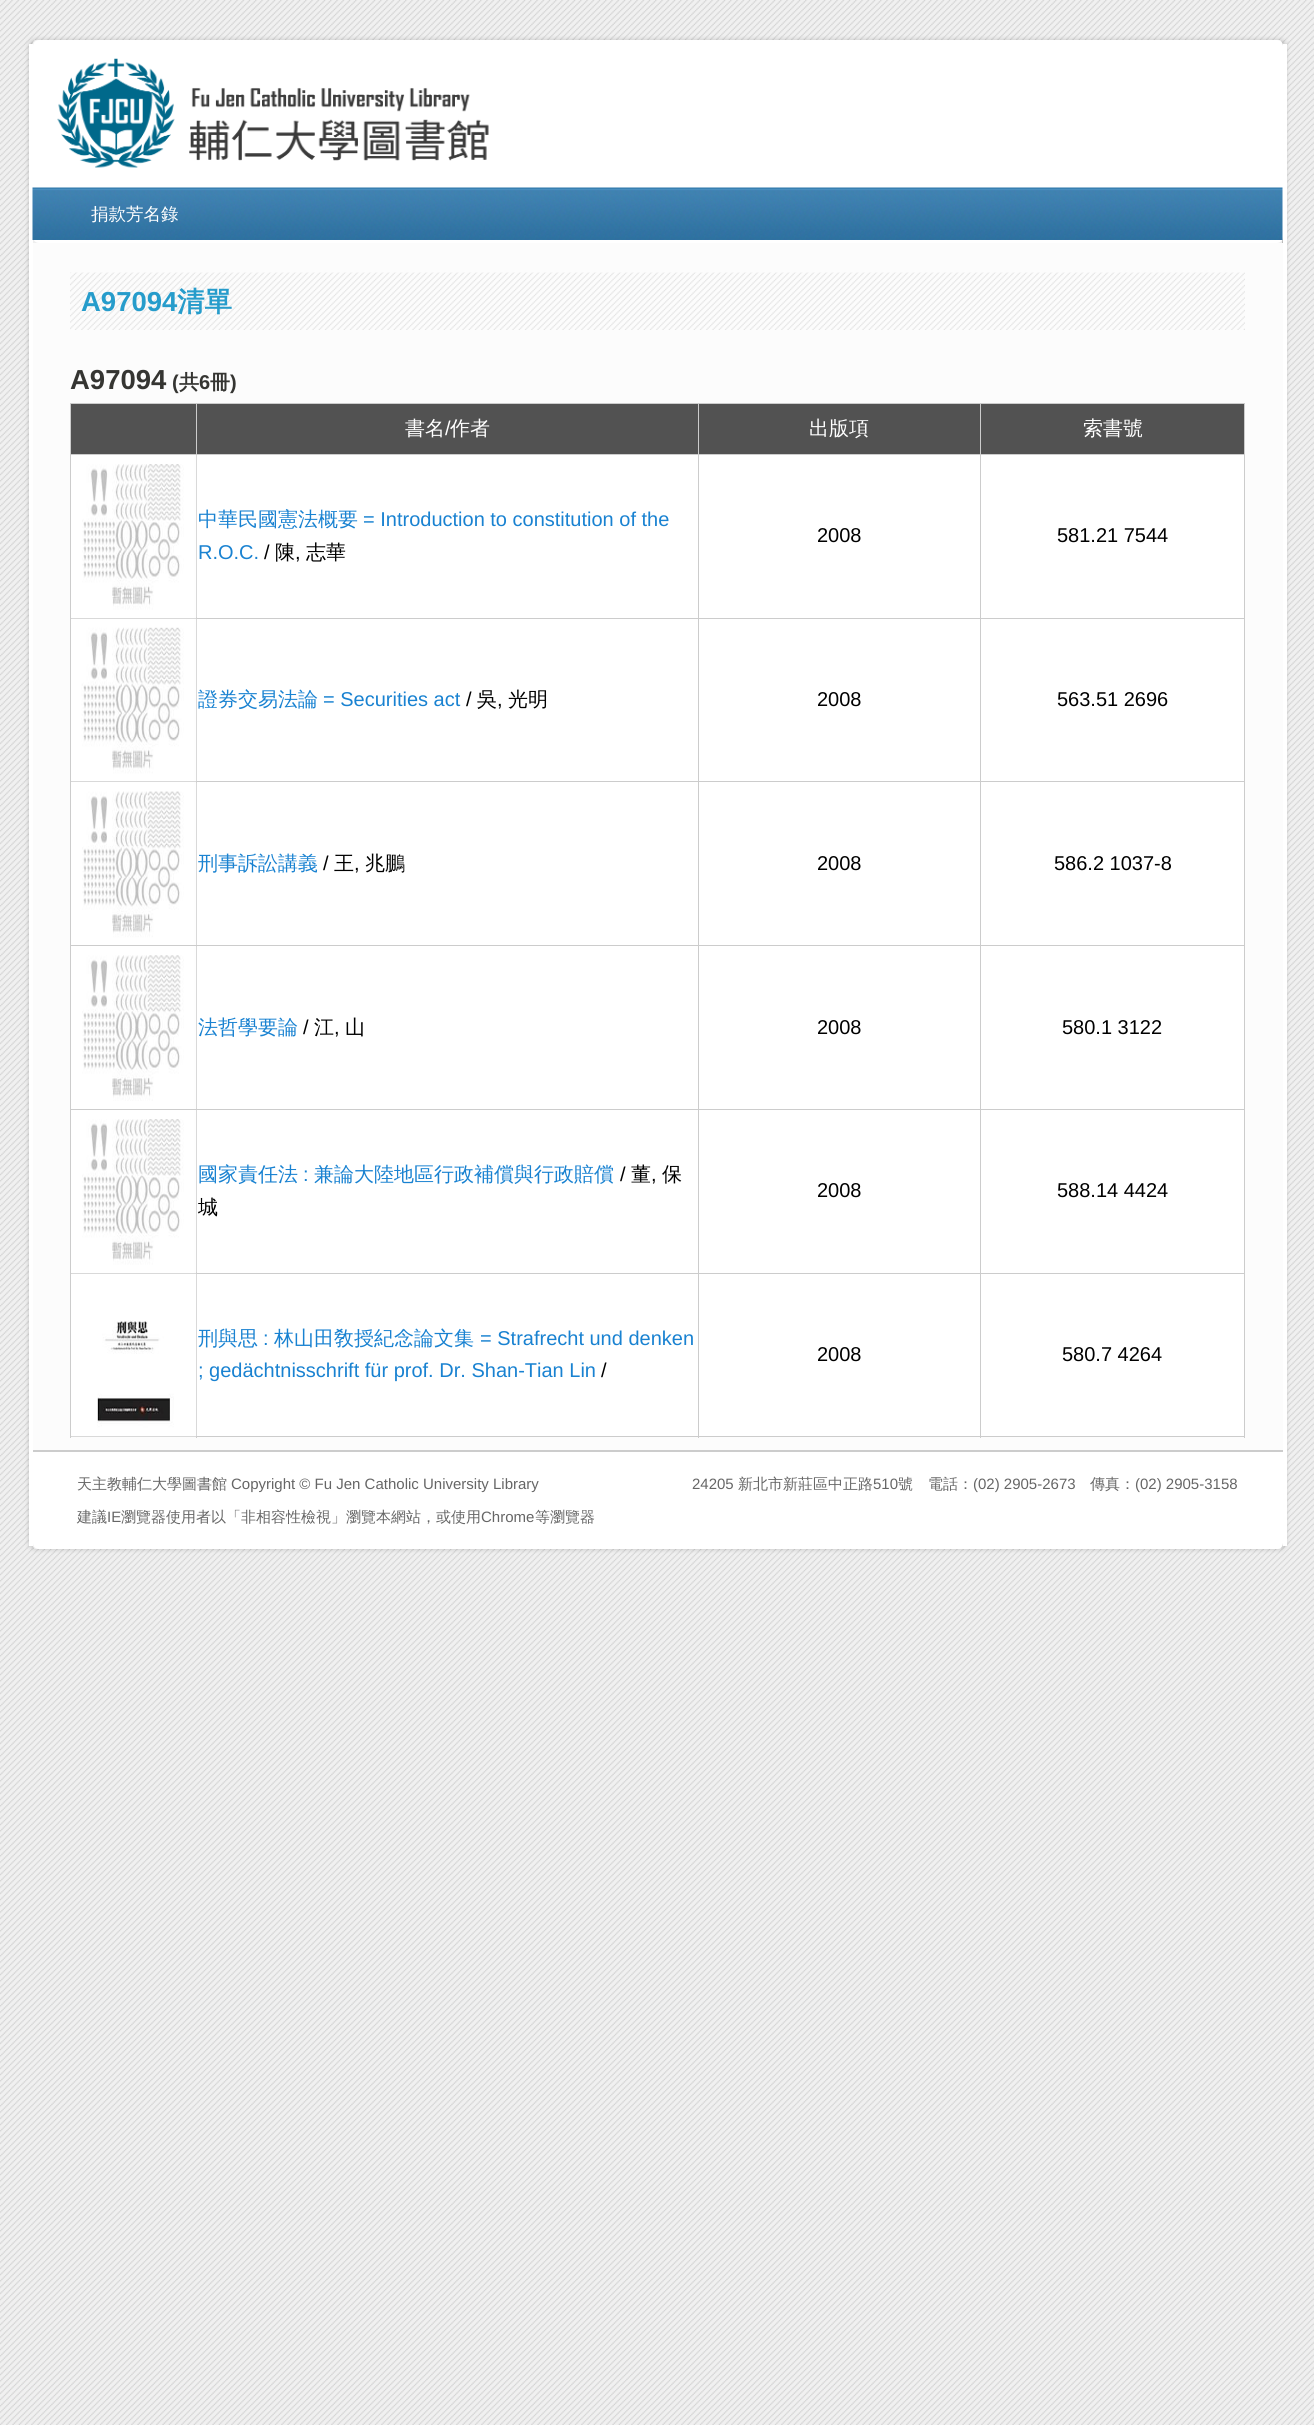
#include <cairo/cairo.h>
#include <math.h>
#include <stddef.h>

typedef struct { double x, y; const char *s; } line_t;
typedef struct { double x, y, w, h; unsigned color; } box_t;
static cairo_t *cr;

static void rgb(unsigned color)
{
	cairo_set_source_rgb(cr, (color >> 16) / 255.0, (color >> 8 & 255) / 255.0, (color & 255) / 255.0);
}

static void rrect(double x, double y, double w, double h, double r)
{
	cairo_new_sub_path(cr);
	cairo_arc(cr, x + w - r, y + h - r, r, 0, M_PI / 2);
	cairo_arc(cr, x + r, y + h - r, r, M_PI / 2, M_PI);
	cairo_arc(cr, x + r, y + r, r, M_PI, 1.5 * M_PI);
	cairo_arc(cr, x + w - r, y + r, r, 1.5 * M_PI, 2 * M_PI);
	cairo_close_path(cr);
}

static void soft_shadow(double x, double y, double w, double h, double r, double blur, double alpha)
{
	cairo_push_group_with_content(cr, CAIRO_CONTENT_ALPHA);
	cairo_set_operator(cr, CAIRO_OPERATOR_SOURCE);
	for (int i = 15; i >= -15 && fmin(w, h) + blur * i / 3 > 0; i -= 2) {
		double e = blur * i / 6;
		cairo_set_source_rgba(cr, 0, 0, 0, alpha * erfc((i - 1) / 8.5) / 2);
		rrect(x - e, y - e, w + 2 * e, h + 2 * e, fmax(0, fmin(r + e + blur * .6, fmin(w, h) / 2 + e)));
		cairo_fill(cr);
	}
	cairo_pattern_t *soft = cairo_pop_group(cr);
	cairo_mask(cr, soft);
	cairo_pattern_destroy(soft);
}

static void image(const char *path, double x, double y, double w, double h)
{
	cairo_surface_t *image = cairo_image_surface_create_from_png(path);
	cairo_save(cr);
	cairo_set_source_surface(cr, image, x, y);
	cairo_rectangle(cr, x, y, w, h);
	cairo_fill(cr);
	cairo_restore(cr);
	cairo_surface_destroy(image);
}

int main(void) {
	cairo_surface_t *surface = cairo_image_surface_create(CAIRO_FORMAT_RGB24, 1314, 2425);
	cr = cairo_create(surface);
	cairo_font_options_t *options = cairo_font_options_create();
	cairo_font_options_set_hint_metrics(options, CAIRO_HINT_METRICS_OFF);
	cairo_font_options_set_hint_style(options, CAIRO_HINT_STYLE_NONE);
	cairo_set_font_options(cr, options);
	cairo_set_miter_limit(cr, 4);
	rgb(0xf0f0f0);
	cairo_paint(cr);
	image("img/1.png", 0, 0, 1314, 2425);
	rgb(0x000000);
	soft_shadow(29, 40, 1257, 1509, 6, 2.5, 0.2);
	rgb(0xeeeeee);
	cairo_new_path(cr);
	cairo_move_to(cr, 35, 40);
	cairo_line_to(cr, 1280, 40);
	cairo_curve_to(cr, 1281, 40, 1282, 43, 1282, 46);
	cairo_line_to(cr, 1282, 1542);
	cairo_curve_to(cr, 1282, 1546, 1281, 1549, 1280, 1549);
	cairo_line_to(cr, 35, 1549);
	cairo_curve_to(cr, 34, 1549, 32, 1546, 32, 1542);
	cairo_line_to(cr, 32, 46);
	cairo_curve_to(cr, 32, 43, 34, 40, 35, 40);
	cairo_close_path(cr);
	cairo_fill(cr);
	rgb(0xffffff);
	cairo_rectangle(cr, 1283, 44, 4, 1502);
	cairo_fill(cr);
	cairo_rectangle(cr, 29, 44, 4, 1502);
	cairo_fill(cr);
	rrect(33, 40, 1250, 203, 6);
	cairo_fill(cr);
	image("img/2.png", 57, 58, 432, 110);
	image("img/3.png", 32, 187, 1251, 53);
	rgb(0xfcfcfc);
	cairo_rectangle(cr, 33, 243, 1250, 1207);
	cairo_fill(cr);
	image("img/4.png", 70, 272, 1175, 58);
	{
		static const box_t items[] = {
			{70, 403, 1175, 1, 0xcccccc},
			{1244, 403, 1, 1035, 0xcccccc},
			{70, 1436, 1175, 1, 0xcccccc},
			{70, 403, 1, 1035, 0xcccccc},
			{71, 404, 1173, 50, 0x525252},
			{980, 454, 265, 1, 0xcccccc},
			{71, 455, 1173, 163, 0xffffff},
			{980, 618, 265, 1, 0xcccccc},
			{71, 619, 1173, 162, 0xffffff},
			{71, 782, 1173, 163, 0xffffff},
			{980, 781, 265, 1, 0xcccccc},
			{980, 945, 265, 1, 0xcccccc},
			{71, 946, 1173, 163, 0xffffff},
			{980, 1109, 265, 1, 0xcccccc},
			{71, 1110, 1173, 163, 0xffffff},
			{980, 1273, 265, 1, 0xcccccc},
			{71, 1274, 1173, 162, 0xffffff},
			{980, 1273, 1, 165, 0xcccccc},
			{698, 1273, 283, 1, 0xcccccc},
			{980, 1109, 1, 165, 0xcccccc},
			{698, 1109, 283, 1, 0xcccccc},
			{980, 945, 1, 165, 0xcccccc},
			{698, 945, 283, 1, 0xcccccc},
			{980, 781, 1, 165, 0xcccccc},
			{698, 781, 283, 1, 0xcccccc},
			{980, 618, 1, 165, 0xcccccc},
			{698, 618, 283, 1, 0xcccccc},
			{980, 454, 1, 165, 0xcccccc},
			{698, 454, 283, 1, 0xcccccc},
			{698, 1273, 1, 165, 0xcccccc},
			{196, 1273, 503, 1, 0xcccccc},
			{698, 1109, 1, 165, 0xcccccc},
			{196, 1109, 503, 1, 0xcccccc},
			{698, 945, 1, 165, 0xcccccc},
			{196, 945, 503, 1, 0xcccccc},
			{698, 781, 1, 165, 0xcccccc},
			{196, 781, 503, 1, 0xcccccc},
			{698, 618, 1, 165, 0xcccccc},
			{196, 618, 503, 1, 0xcccccc},
			{698, 454, 1, 165, 0xcccccc},
			{196, 454, 503, 1, 0xcccccc},
			{196, 1273, 1, 165, 0xcccccc},
			{70, 1273, 128, 1, 0xcccccc},
			{196, 1109, 1, 165, 0xcccccc},
			{70, 1109, 128, 1, 0xcccccc},
			{196, 945, 1, 165, 0xcccccc},
			{70, 945, 128, 1, 0xcccccc},
			{196, 781, 1, 165, 0xcccccc},
			{70, 781, 128, 1, 0xcccccc},
			{196, 618, 1, 165, 0xcccccc},
			{70, 618, 128, 1, 0xcccccc},
			{196, 454, 1, 165, 0xcccccc},
			{70, 454, 128, 1, 0xcccccc},
			{196, 403, 1, 52, 0xcccccc},
			{698, 403, 1, 52, 0xcccccc},
			{980, 403, 1, 52, 0xcccccc},
		};
		for (size_t i = 0; i < sizeof items / sizeof *items; i++) {
			rgb(items[i].color);
			cairo_rectangle(cr, items[i].x, items[i].y, items[i].w, items[i].h);
			cairo_fill(cr);
		}
	}
	image("img/5.png", 82, 455, 115, 163);
	image("img/6.png", 71, 618, 126, 164);
	image("img/7.png", 82, 782, 115, 163);
	image("img/8.png", 82, 946, 115, 163);
	image("img/5.png", 82, 1110, 115, 163);
	image("img/9.png", 71, 1273, 126, 164);
	cairo_rectangle(cr, 33, 1450, 1250, 1);
	cairo_fill(cr);
	rgb(0xffffff);
	cairo_new_path(cr);
	cairo_move_to(cr, 33, 1451);
	cairo_line_to(cr, 1283, 1451);
	cairo_line_to(cr, 1283, 1543);
	cairo_curve_to(cr, 1283, 1546.5, 1280.5, 1549, 1277, 1549);
	cairo_line_to(cr, 39, 1549);
	cairo_curve_to(cr, 35.5, 1549, 33, 1546.5, 33, 1543);
	cairo_close_path(cr);
	cairo_fill(cr);
	rgb(0xcccccc);
	cairo_rectangle(cr, 33, 1451, 1250, 1);
	cairo_fill(cr);
	cairo_select_font_face(cr, "WenQuanYi Zen Hei Medium", CAIRO_FONT_SLANT_NORMAL, CAIRO_FONT_WEIGHT_NORMAL);
	cairo_set_font_size(cr, 17.5);
	rgb(0xffffff);
	cairo_move_to(cr, 91, 220);
	cairo_show_text(cr, "捐款芳名錄");
	cairo_select_font_face(cr, "Liberation Sans", CAIRO_FONT_SLANT_NORMAL, CAIRO_FONT_WEIGHT_BOLD);
	cairo_set_font_size(cr, 27.5);
	rgb(0x269ccb);
	cairo_move_to(cr, 81, 311);
	cairo_show_text(cr, "A97094");
	cairo_select_font_face(cr, "WenQuanYi Zen Hei", CAIRO_FONT_SLANT_NORMAL, CAIRO_FONT_WEIGHT_BOLD);
	cairo_move_to(cr, 177, 311);
	cairo_show_text(cr, "清單");
	cairo_select_font_face(cr, "Liberation Sans", CAIRO_FONT_SLANT_NORMAL, CAIRO_FONT_WEIGHT_BOLD);
	rgb(0x353532);
	cairo_move_to(cr, 70, 389);
	cairo_show_text(cr, "A97094");
	cairo_set_font_size(cr, 20);
	cairo_move_to(cr, 172, 389);
	cairo_show_text(cr, "(");
	cairo_select_font_face(cr, "WenQuanYi Zen Hei", CAIRO_FONT_SLANT_NORMAL, CAIRO_FONT_WEIGHT_BOLD);
	cairo_move_to(cr, 179, 389);
	cairo_show_text(cr, "共");
	cairo_select_font_face(cr, "Liberation Sans", CAIRO_FONT_SLANT_NORMAL, CAIRO_FONT_WEIGHT_BOLD);
	cairo_move_to(cr, 199, 389);
	cairo_show_text(cr, "6");
	cairo_select_font_face(cr, "WenQuanYi Zen Hei", CAIRO_FONT_SLANT_NORMAL, CAIRO_FONT_WEIGHT_BOLD);
	cairo_move_to(cr, 210, 389);
	cairo_show_text(cr, "冊");
	cairo_select_font_face(cr, "Liberation Sans", CAIRO_FONT_SLANT_NORMAL, CAIRO_FONT_WEIGHT_BOLD);
	cairo_move_to(cr, 230, 389);
	cairo_show_text(cr, ")");
	cairo_select_font_face(cr, "WenQuanYi Zen Hei Medium", CAIRO_FONT_SLANT_NORMAL, CAIRO_FONT_WEIGHT_NORMAL);
	rgb(0xffffff);
	cairo_move_to(cr, 405, 435);
	cairo_show_text(cr, "書名");
	cairo_select_font_face(cr, "Liberation Sans", CAIRO_FONT_SLANT_NORMAL, CAIRO_FONT_WEIGHT_NORMAL);
	cairo_move_to(cr, 445, 435);
	cairo_show_text(cr, "/");
	cairo_select_font_face(cr, "WenQuanYi Zen Hei Medium", CAIRO_FONT_SLANT_NORMAL, CAIRO_FONT_WEIGHT_NORMAL);
	{
		static const line_t items[] = {
			{450, 435, "作者"},
			{809, 435, "出版項"},
			{1083, 435, "索書號"},
		};
		for (size_t i = 0; i < sizeof items / sizeof *items; i++) {
			cairo_move_to(cr, items[i].x, items[i].y);
			cairo_show_text(cr, items[i].s);
		}
	}
	rgb(0x1982d1);
	cairo_move_to(cr, 198, 526);
	cairo_show_text(cr, "中華民國憲法概要");
	cairo_select_font_face(cr, "Liberation Sans", CAIRO_FONT_SLANT_NORMAL, CAIRO_FONT_WEIGHT_NORMAL);
	cairo_move_to(cr, 363, 526);
	cairo_show_text(cr, "= Introduction to constitution of the");
	cairo_move_to(cr, 198, 559);
	cairo_show_text(cr, "R.O.C.");
	rgb(0x000000);
	cairo_move_to(cr, 264, 559);
	cairo_show_text(cr, "/");
	cairo_select_font_face(cr, "WenQuanYi Zen Hei Medium", CAIRO_FONT_SLANT_NORMAL, CAIRO_FONT_WEIGHT_NORMAL);
	cairo_move_to(cr, 275, 559);
	cairo_show_text(cr, "陳");
	cairo_select_font_face(cr, "Liberation Sans", CAIRO_FONT_SLANT_NORMAL, CAIRO_FONT_WEIGHT_NORMAL);
	cairo_move_to(cr, 295, 559);
	cairo_show_text(cr, ",");
	cairo_select_font_face(cr, "WenQuanYi Zen Hei Medium", CAIRO_FONT_SLANT_NORMAL, CAIRO_FONT_WEIGHT_NORMAL);
	cairo_move_to(cr, 306, 559);
	cairo_show_text(cr, "志華");
	cairo_select_font_face(cr, "Liberation Sans", CAIRO_FONT_SLANT_NORMAL, CAIRO_FONT_WEIGHT_NORMAL);
	cairo_move_to(cr, 817, 542);
	cairo_show_text(cr, "2008");
	cairo_move_to(cr, 1057, 542);
	cairo_show_text(cr, "581.21 7544");
	cairo_select_font_face(cr, "WenQuanYi Zen Hei Medium", CAIRO_FONT_SLANT_NORMAL, CAIRO_FONT_WEIGHT_NORMAL);
	rgb(0x1982d1);
	cairo_move_to(cr, 198, 706);
	cairo_show_text(cr, "證券交易法論");
	cairo_select_font_face(cr, "Liberation Sans", CAIRO_FONT_SLANT_NORMAL, CAIRO_FONT_WEIGHT_NORMAL);
	cairo_move_to(cr, 323, 706);
	cairo_show_text(cr, "= Securities act");
	rgb(0x000000);
	cairo_move_to(cr, 466, 706);
	cairo_show_text(cr, "/");
	cairo_select_font_face(cr, "WenQuanYi Zen Hei Medium", CAIRO_FONT_SLANT_NORMAL, CAIRO_FONT_WEIGHT_NORMAL);
	cairo_move_to(cr, 477, 706);
	cairo_show_text(cr, "吳");
	cairo_select_font_face(cr, "Liberation Sans", CAIRO_FONT_SLANT_NORMAL, CAIRO_FONT_WEIGHT_NORMAL);
	cairo_move_to(cr, 497, 706);
	cairo_show_text(cr, ",");
	cairo_select_font_face(cr, "WenQuanYi Zen Hei Medium", CAIRO_FONT_SLANT_NORMAL, CAIRO_FONT_WEIGHT_NORMAL);
	cairo_move_to(cr, 508, 706);
	cairo_show_text(cr, "光明");
	cairo_select_font_face(cr, "Liberation Sans", CAIRO_FONT_SLANT_NORMAL, CAIRO_FONT_WEIGHT_NORMAL);
	cairo_move_to(cr, 817, 706);
	cairo_show_text(cr, "2008");
	cairo_move_to(cr, 1057, 706);
	cairo_show_text(cr, "563.51 2696");
	cairo_select_font_face(cr, "WenQuanYi Zen Hei Medium", CAIRO_FONT_SLANT_NORMAL, CAIRO_FONT_WEIGHT_NORMAL);
	rgb(0x1982d1);
	cairo_move_to(cr, 198, 870);
	cairo_show_text(cr, "刑事訴訟講義");
	cairo_select_font_face(cr, "Liberation Sans", CAIRO_FONT_SLANT_NORMAL, CAIRO_FONT_WEIGHT_NORMAL);
	rgb(0x000000);
	cairo_move_to(cr, 323, 870);
	cairo_show_text(cr, "/");
	cairo_select_font_face(cr, "WenQuanYi Zen Hei Medium", CAIRO_FONT_SLANT_NORMAL, CAIRO_FONT_WEIGHT_NORMAL);
	cairo_move_to(cr, 334, 870);
	cairo_show_text(cr, "王");
	cairo_select_font_face(cr, "Liberation Sans", CAIRO_FONT_SLANT_NORMAL, CAIRO_FONT_WEIGHT_NORMAL);
	cairo_move_to(cr, 354, 870);
	cairo_show_text(cr, ",");
	cairo_select_font_face(cr, "WenQuanYi Zen Hei Medium", CAIRO_FONT_SLANT_NORMAL, CAIRO_FONT_WEIGHT_NORMAL);
	cairo_move_to(cr, 365, 870);
	cairo_show_text(cr, "兆鵬");
	cairo_select_font_face(cr, "Liberation Sans", CAIRO_FONT_SLANT_NORMAL, CAIRO_FONT_WEIGHT_NORMAL);
	cairo_move_to(cr, 817, 870);
	cairo_show_text(cr, "2008");
	cairo_move_to(cr, 1054, 870);
	cairo_show_text(cr, "586.2 1037-8");
	cairo_select_font_face(cr, "WenQuanYi Zen Hei Medium", CAIRO_FONT_SLANT_NORMAL, CAIRO_FONT_WEIGHT_NORMAL);
	rgb(0x1982d1);
	cairo_move_to(cr, 198, 1034);
	cairo_show_text(cr, "法哲學要論");
	cairo_select_font_face(cr, "Liberation Sans", CAIRO_FONT_SLANT_NORMAL, CAIRO_FONT_WEIGHT_NORMAL);
	rgb(0x000000);
	cairo_move_to(cr, 303, 1034);
	cairo_show_text(cr, "/");
	cairo_select_font_face(cr, "WenQuanYi Zen Hei Medium", CAIRO_FONT_SLANT_NORMAL, CAIRO_FONT_WEIGHT_NORMAL);
	cairo_move_to(cr, 314, 1034);
	cairo_show_text(cr, "江");
	cairo_select_font_face(cr, "Liberation Sans", CAIRO_FONT_SLANT_NORMAL, CAIRO_FONT_WEIGHT_NORMAL);
	cairo_move_to(cr, 334, 1034);
	cairo_show_text(cr, ",");
	cairo_select_font_face(cr, "WenQuanYi Zen Hei Medium", CAIRO_FONT_SLANT_NORMAL, CAIRO_FONT_WEIGHT_NORMAL);
	cairo_move_to(cr, 345, 1034);
	cairo_show_text(cr, "山");
	cairo_select_font_face(cr, "Liberation Sans", CAIRO_FONT_SLANT_NORMAL, CAIRO_FONT_WEIGHT_NORMAL);
	cairo_move_to(cr, 817, 1034);
	cairo_show_text(cr, "2008");
	cairo_move_to(cr, 1062, 1034);
	cairo_show_text(cr, "580.1 3122");
	cairo_select_font_face(cr, "WenQuanYi Zen Hei Medium", CAIRO_FONT_SLANT_NORMAL, CAIRO_FONT_WEIGHT_NORMAL);
	rgb(0x1982d1);
	cairo_move_to(cr, 198, 1181);
	cairo_show_text(cr, "國家責任法");
	cairo_select_font_face(cr, "Liberation Sans", CAIRO_FONT_SLANT_NORMAL, CAIRO_FONT_WEIGHT_NORMAL);
	cairo_move_to(cr, 303, 1181);
	cairo_show_text(cr, ":");
	cairo_select_font_face(cr, "WenQuanYi Zen Hei Medium", CAIRO_FONT_SLANT_NORMAL, CAIRO_FONT_WEIGHT_NORMAL);
	cairo_move_to(cr, 314, 1181);
	cairo_show_text(cr, "兼論大陸地區行政補償與行政賠償");
	cairo_select_font_face(cr, "Liberation Sans", CAIRO_FONT_SLANT_NORMAL, CAIRO_FONT_WEIGHT_NORMAL);
	rgb(0x000000);
	cairo_move_to(cr, 620, 1181);
	cairo_show_text(cr, "/");
	cairo_select_font_face(cr, "WenQuanYi Zen Hei Medium", CAIRO_FONT_SLANT_NORMAL, CAIRO_FONT_WEIGHT_NORMAL);
	cairo_move_to(cr, 631, 1181);
	cairo_show_text(cr, "董");
	cairo_select_font_face(cr, "Liberation Sans", CAIRO_FONT_SLANT_NORMAL, CAIRO_FONT_WEIGHT_NORMAL);
	cairo_move_to(cr, 651, 1181);
	cairo_show_text(cr, ",");
	cairo_select_font_face(cr, "WenQuanYi Zen Hei Medium", CAIRO_FONT_SLANT_NORMAL, CAIRO_FONT_WEIGHT_NORMAL);
	cairo_move_to(cr, 662, 1181);
	cairo_show_text(cr, "保");
	cairo_move_to(cr, 198, 1214);
	cairo_show_text(cr, "城");
	cairo_select_font_face(cr, "Liberation Sans", CAIRO_FONT_SLANT_NORMAL, CAIRO_FONT_WEIGHT_NORMAL);
	cairo_move_to(cr, 817, 1197);
	cairo_show_text(cr, "2008");
	cairo_move_to(cr, 1057, 1197);
	cairo_show_text(cr, "588.14 4424");
	cairo_select_font_face(cr, "WenQuanYi Zen Hei Medium", CAIRO_FONT_SLANT_NORMAL, CAIRO_FONT_WEIGHT_NORMAL);
	rgb(0x1982d1);
	cairo_move_to(cr, 198, 1345);
	cairo_show_text(cr, "刑與思");
	cairo_select_font_face(cr, "Liberation Sans", CAIRO_FONT_SLANT_NORMAL, CAIRO_FONT_WEIGHT_NORMAL);
	cairo_move_to(cr, 263, 1345);
	cairo_show_text(cr, ":");
	cairo_select_font_face(cr, "WenQuanYi Zen Hei Medium", CAIRO_FONT_SLANT_NORMAL, CAIRO_FONT_WEIGHT_NORMAL);
	cairo_move_to(cr, 274, 1345);
	cairo_show_text(cr, "林山田敎授紀念論文集");
	cairo_select_font_face(cr, "Liberation Sans", CAIRO_FONT_SLANT_NORMAL, CAIRO_FONT_WEIGHT_NORMAL);
	cairo_move_to(cr, 480, 1345);
	cairo_show_text(cr, "= Strafrecht und denken");
	cairo_move_to(cr, 198, 1377);
	cairo_show_text(cr, "; gedächtnisschrift für prof. Dr. Shan-Tian Lin");
	rgb(0x000000);
	{
		static const line_t items[] = {
			{601, 1377, "/"},
			{817, 1361, "2008"},
			{1062, 1361, "580.7 4264"},
		};
		for (size_t i = 0; i < sizeof items / sizeof *items; i++) {
			cairo_move_to(cr, items[i].x, items[i].y);
			cairo_show_text(cr, items[i].s);
		}
	}
	cairo_select_font_face(cr, "WenQuanYi Zen Hei Medium", CAIRO_FONT_SLANT_NORMAL, CAIRO_FONT_WEIGHT_NORMAL);
	cairo_set_font_size(cr, 15);
	rgb(0x666666);
	cairo_move_to(cr, 77, 1489);
	cairo_show_text(cr, "天主教輔仁大學圖書館");
	cairo_select_font_face(cr, "Liberation Sans", CAIRO_FONT_SLANT_NORMAL, CAIRO_FONT_WEIGHT_NORMAL);
	cairo_move_to(cr, 231, 1489);
	cairo_show_text(cr, "Copyright © Fu Jen Catholic University Library");
	cairo_select_font_face(cr, "WenQuanYi Zen Hei Medium", CAIRO_FONT_SLANT_NORMAL, CAIRO_FONT_WEIGHT_NORMAL);
	cairo_move_to(cr, 77, 1522);
	cairo_show_text(cr, "建議");
	cairo_select_font_face(cr, "Liberation Sans", CAIRO_FONT_SLANT_NORMAL, CAIRO_FONT_WEIGHT_NORMAL);
	cairo_move_to(cr, 107, 1522);
	cairo_show_text(cr, "IE");
	cairo_select_font_face(cr, "WenQuanYi Zen Hei Medium", CAIRO_FONT_SLANT_NORMAL, CAIRO_FONT_WEIGHT_NORMAL);
	cairo_move_to(cr, 121, 1522);
	cairo_show_text(cr, "瀏覽器使用者以「非相容性檢視」瀏覽本網站，或使用");
	cairo_select_font_face(cr, "Liberation Sans", CAIRO_FONT_SLANT_NORMAL, CAIRO_FONT_WEIGHT_NORMAL);
	cairo_move_to(cr, 481, 1522);
	cairo_show_text(cr, "Chrome");
	cairo_select_font_face(cr, "WenQuanYi Zen Hei Medium", CAIRO_FONT_SLANT_NORMAL, CAIRO_FONT_WEIGHT_NORMAL);
	cairo_move_to(cr, 535, 1522);
	cairo_show_text(cr, "等瀏覽器");
	cairo_select_font_face(cr, "Liberation Sans", CAIRO_FONT_SLANT_NORMAL, CAIRO_FONT_WEIGHT_NORMAL);
	cairo_move_to(cr, 692, 1489);
	cairo_show_text(cr, "24205");
	cairo_select_font_face(cr, "WenQuanYi Zen Hei Medium", CAIRO_FONT_SLANT_NORMAL, CAIRO_FONT_WEIGHT_NORMAL);
	cairo_move_to(cr, 738, 1489);
	cairo_show_text(cr, "新北市新莊區中正路");
	cairo_select_font_face(cr, "Liberation Sans", CAIRO_FONT_SLANT_NORMAL, CAIRO_FONT_WEIGHT_NORMAL);
	cairo_move_to(cr, 873, 1489);
	cairo_show_text(cr, "510");
	cairo_select_font_face(cr, "WenQuanYi Zen Hei Medium", CAIRO_FONT_SLANT_NORMAL, CAIRO_FONT_WEIGHT_NORMAL);
	cairo_move_to(cr, 898, 1489);
	cairo_show_text(cr, "號　電話：");
	cairo_select_font_face(cr, "Liberation Sans", CAIRO_FONT_SLANT_NORMAL, CAIRO_FONT_WEIGHT_NORMAL);
	cairo_move_to(cr, 973, 1489);
	cairo_show_text(cr, "(02) 2905-2673");
	cairo_select_font_face(cr, "WenQuanYi Zen Hei Medium", CAIRO_FONT_SLANT_NORMAL, CAIRO_FONT_WEIGHT_NORMAL);
	cairo_move_to(cr, 1090, 1489);
	cairo_show_text(cr, "傳真：");
	cairo_select_font_face(cr, "Liberation Sans", CAIRO_FONT_SLANT_NORMAL, CAIRO_FONT_WEIGHT_NORMAL);
	cairo_move_to(cr, 1135, 1489);
	cairo_show_text(cr, "(02) 2905-3158");
	cairo_surface_write_to_png(surface, "page.png");
	cairo_font_options_destroy(options);
	cairo_destroy(cr);
	cairo_surface_destroy(surface);
	return 0;
}
